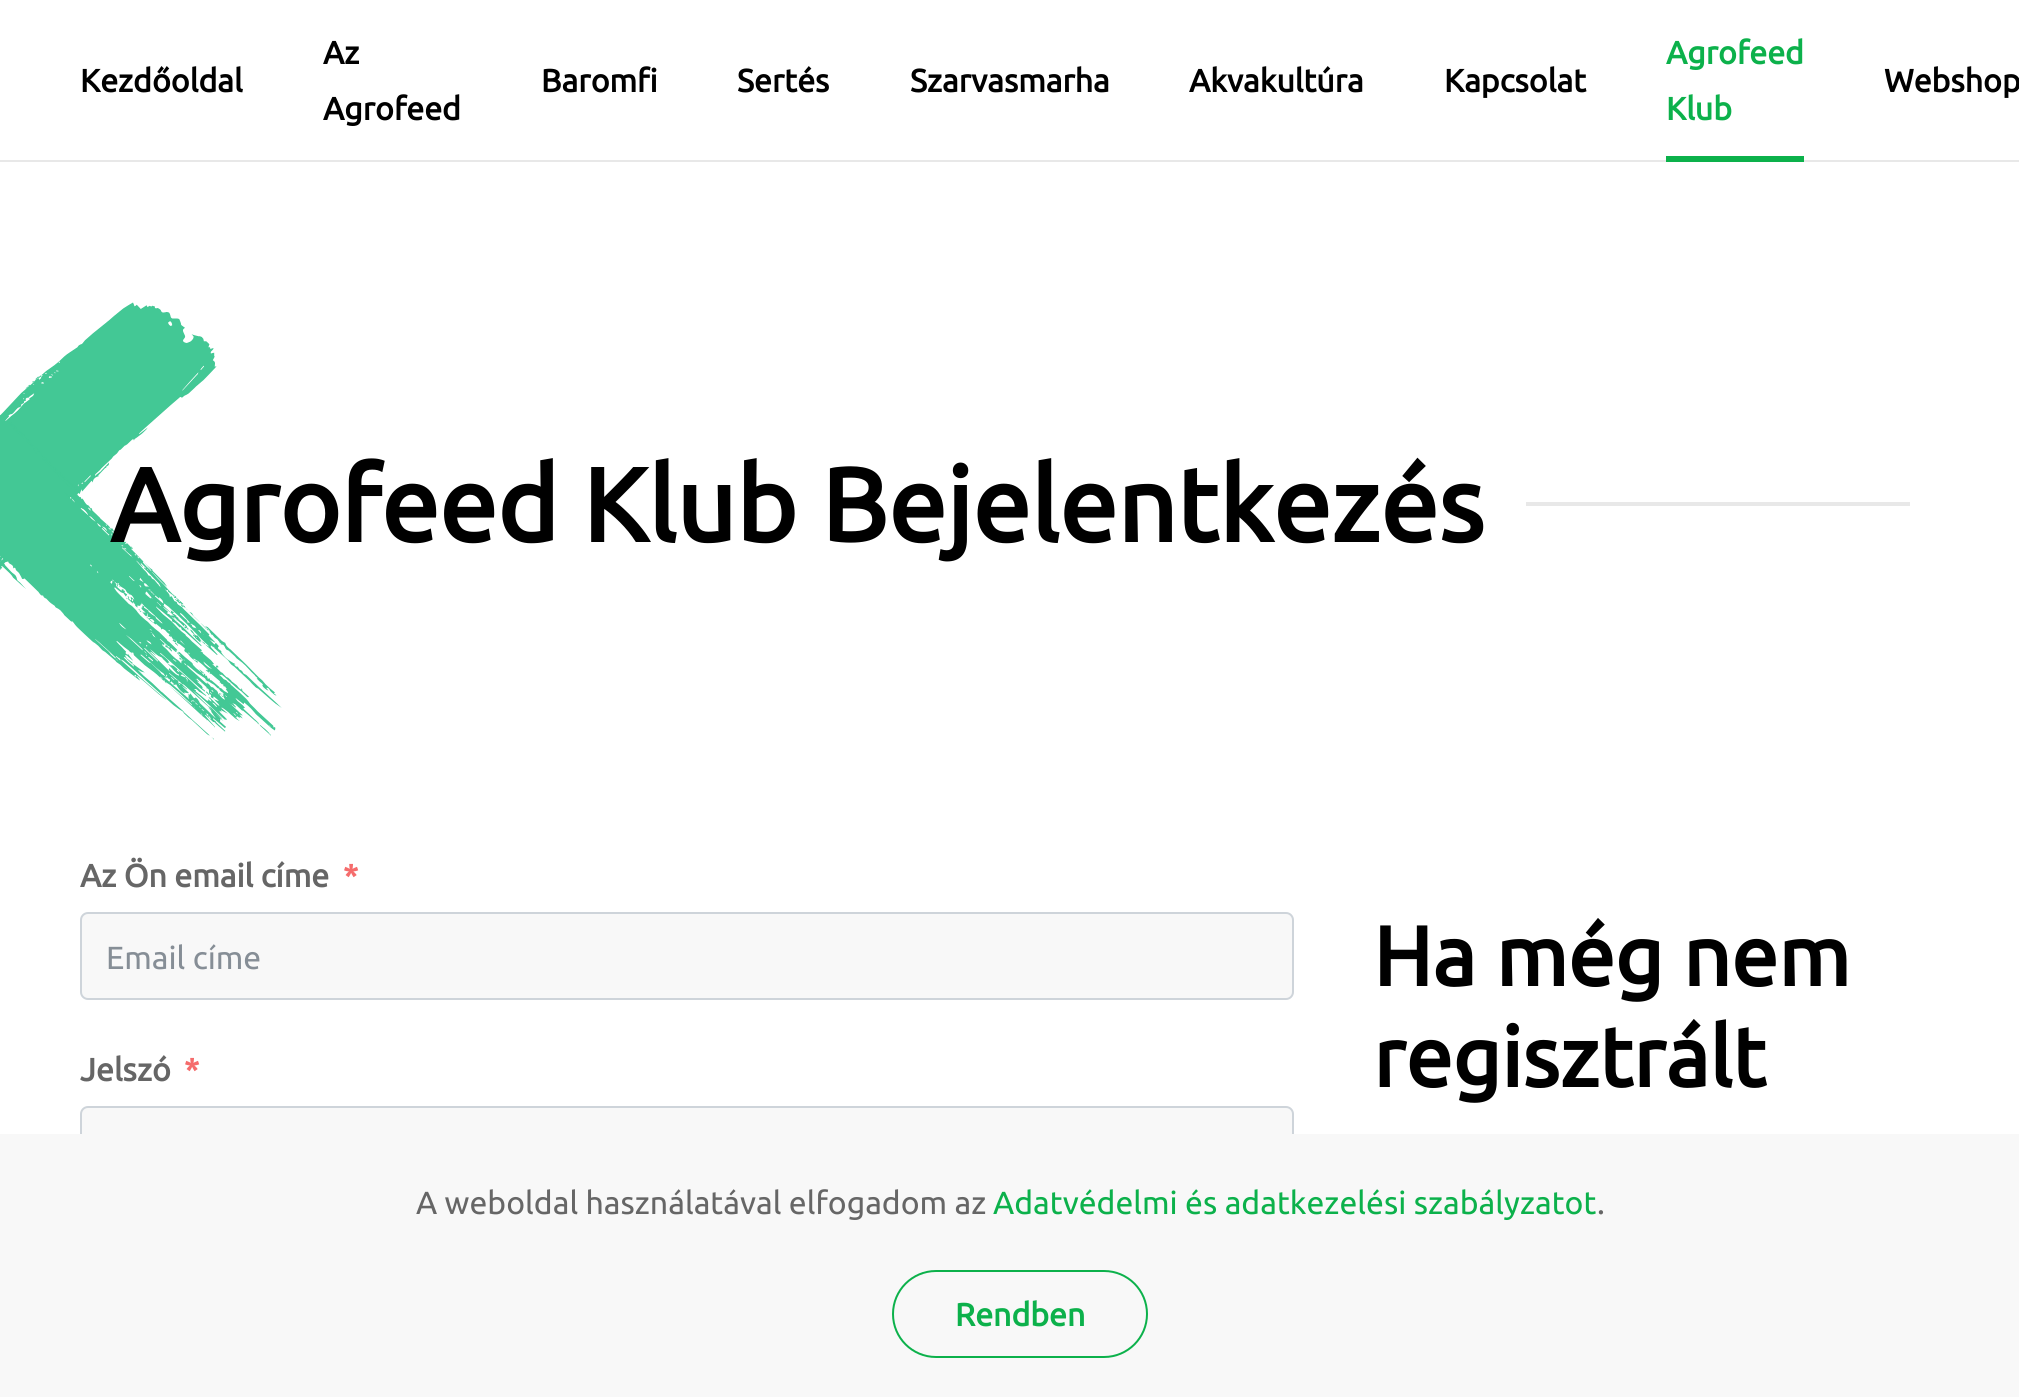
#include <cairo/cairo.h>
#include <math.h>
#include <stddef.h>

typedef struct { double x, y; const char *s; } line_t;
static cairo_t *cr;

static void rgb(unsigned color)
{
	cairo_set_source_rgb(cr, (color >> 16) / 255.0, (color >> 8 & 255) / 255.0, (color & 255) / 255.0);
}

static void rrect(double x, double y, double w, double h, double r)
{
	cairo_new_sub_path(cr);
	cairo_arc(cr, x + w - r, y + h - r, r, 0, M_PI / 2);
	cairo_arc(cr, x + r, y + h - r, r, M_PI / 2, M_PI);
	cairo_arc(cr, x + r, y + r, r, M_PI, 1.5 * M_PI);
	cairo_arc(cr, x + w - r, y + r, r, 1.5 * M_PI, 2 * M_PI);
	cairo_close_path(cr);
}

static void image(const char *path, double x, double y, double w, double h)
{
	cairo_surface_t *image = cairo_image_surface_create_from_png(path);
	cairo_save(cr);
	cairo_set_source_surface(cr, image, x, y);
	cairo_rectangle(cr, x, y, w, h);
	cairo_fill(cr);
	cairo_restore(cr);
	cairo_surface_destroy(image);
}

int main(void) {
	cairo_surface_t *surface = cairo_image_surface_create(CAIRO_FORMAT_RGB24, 2019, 1397);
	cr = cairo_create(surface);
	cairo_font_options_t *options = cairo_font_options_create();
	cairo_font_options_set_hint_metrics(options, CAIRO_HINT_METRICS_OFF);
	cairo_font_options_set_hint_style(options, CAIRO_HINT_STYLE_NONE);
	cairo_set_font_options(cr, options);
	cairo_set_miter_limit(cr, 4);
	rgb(0xffffff);
	cairo_paint(cr);
	rgb(0xe8e8e8);
	cairo_rectangle(cr, 0, 160, 2019, 2);
	cairo_fill(cr);
	rgb(0x0cb14b);
	cairo_rectangle(cr, 1666, 156, 138, 6);
	cairo_fill(cr);
	image("img/1.png", 0, 302, 282, 438);
	rgb(0xe8e8e8);
	cairo_rectangle(cr, 1526, 502, 384, 4);
	cairo_fill(cr);
	rgb(0xf8f8f8);
	rrect(81, 913, 1212, 86, 7);
	cairo_fill_preserve(cr);
	rgb(0xced4da);
	cairo_stroke(cr);
	rgb(0xf8f8f8);
	rrect(81, 1107, 1212, 86, 7);
	cairo_fill_preserve(cr);
	rgb(0xced4da);
	cairo_stroke(cr);
	rgb(0xf8f8f8);
	cairo_rectangle(cr, 0, 1134, 2019, 263);
	cairo_fill(cr);
	rrect(893, 1271, 254, 86, 43);
	rgb(0x0cb14b);
	cairo_stroke(cr);
	cairo_select_font_face(cr, "Ubuntu", CAIRO_FONT_SLANT_NORMAL, CAIRO_FONT_WEIGHT_BOLD);
	cairo_set_font_size(cr, 32);
	rgb(0x000000);
	{
		static const line_t items[] = {
			{80, 92, "Kezdőoldal"},
			{323, 64, "Az"},
			{323, 120, "Agrofeed"},
			{541, 92, "Baromfi"},
			{737, 92, "Sertés"},
			{910, 92, "Szarvasmarha"},
			{1189, 92, "Akvakultúra"},
			{1444, 92, "Kapcsolat"},
		};
		for (size_t i = 0; i < sizeof items / sizeof *items; i++) {
			cairo_move_to(cr, items[i].x, items[i].y);
			cairo_show_text(cr, items[i].s);
		}
	}
	rgb(0x0cb14b);
	cairo_move_to(cr, 1666, 64);
	cairo_show_text(cr, "Agrofeed");
	cairo_move_to(cr, 1666, 120);
	cairo_show_text(cr, "Klub");
	rgb(0x000000);
	cairo_move_to(cr, 1884, 92);
	cairo_show_text(cr, "Webshop");
	cairo_set_font_size(cr, 104);
	cairo_move_to(cr, 110, 542);
	cairo_show_text(cr, "Agrofeed Klub Bejelentkezés");
	cairo_set_font_size(cr, 32);
	rgb(0x666666);
	cairo_move_to(cr, 80, 887);
	cairo_show_text(cr, "Az Ön email címe");
	rgb(0xf56c6c);
	cairo_move_to(cr, 343, 887);
	cairo_show_text(cr, "*");
	cairo_select_font_face(cr, "Ubuntu", CAIRO_FONT_SLANT_NORMAL, CAIRO_FONT_WEIGHT_NORMAL);
	rgb(0x868e96);
	cairo_move_to(cr, 106, 969);
	cairo_show_text(cr, "Email címe");
	cairo_select_font_face(cr, "Ubuntu", CAIRO_FONT_SLANT_NORMAL, CAIRO_FONT_WEIGHT_BOLD);
	rgb(0x666666);
	cairo_move_to(cr, 80, 1081);
	cairo_show_text(cr, "Jelszó");
	rgb(0xf56c6c);
	cairo_move_to(cr, 184, 1081);
	cairo_show_text(cr, "*");
	cairo_set_font_size(cr, 84);
	rgb(0x000000);
	cairo_move_to(cr, 1373, 986);
	cairo_show_text(cr, "Ha még nem");
	cairo_move_to(cr, 1373, 1087);
	cairo_show_text(cr, "regisztrált");
	cairo_select_font_face(cr, "Ubuntu", CAIRO_FONT_SLANT_NORMAL, CAIRO_FONT_WEIGHT_NORMAL);
	cairo_set_font_size(cr, 32);
	rgb(0x666666);
	cairo_move_to(cr, 416, 1214);
	cairo_show_text(cr, "A weboldal használatával elfogadom az");
	rgb(0x0cb14b);
	cairo_move_to(cr, 993, 1214);
	cairo_show_text(cr, "Adatvédelmi és adatkezelési szabályzatot");
	rgb(0x666666);
	cairo_move_to(cr, 1597, 1214);
	cairo_show_text(cr, ".");
	cairo_select_font_face(cr, "Ubuntu", CAIRO_FONT_SLANT_NORMAL, CAIRO_FONT_WEIGHT_BOLD);
	rgb(0x0cb14b);
	cairo_move_to(cr, 955, 1326);
	cairo_show_text(cr, "Rendben");
	cairo_surface_write_to_png(surface, "page.png");
	cairo_font_options_destroy(options);
	cairo_destroy(cr);
	cairo_surface_destroy(surface);
	return 0;
}
